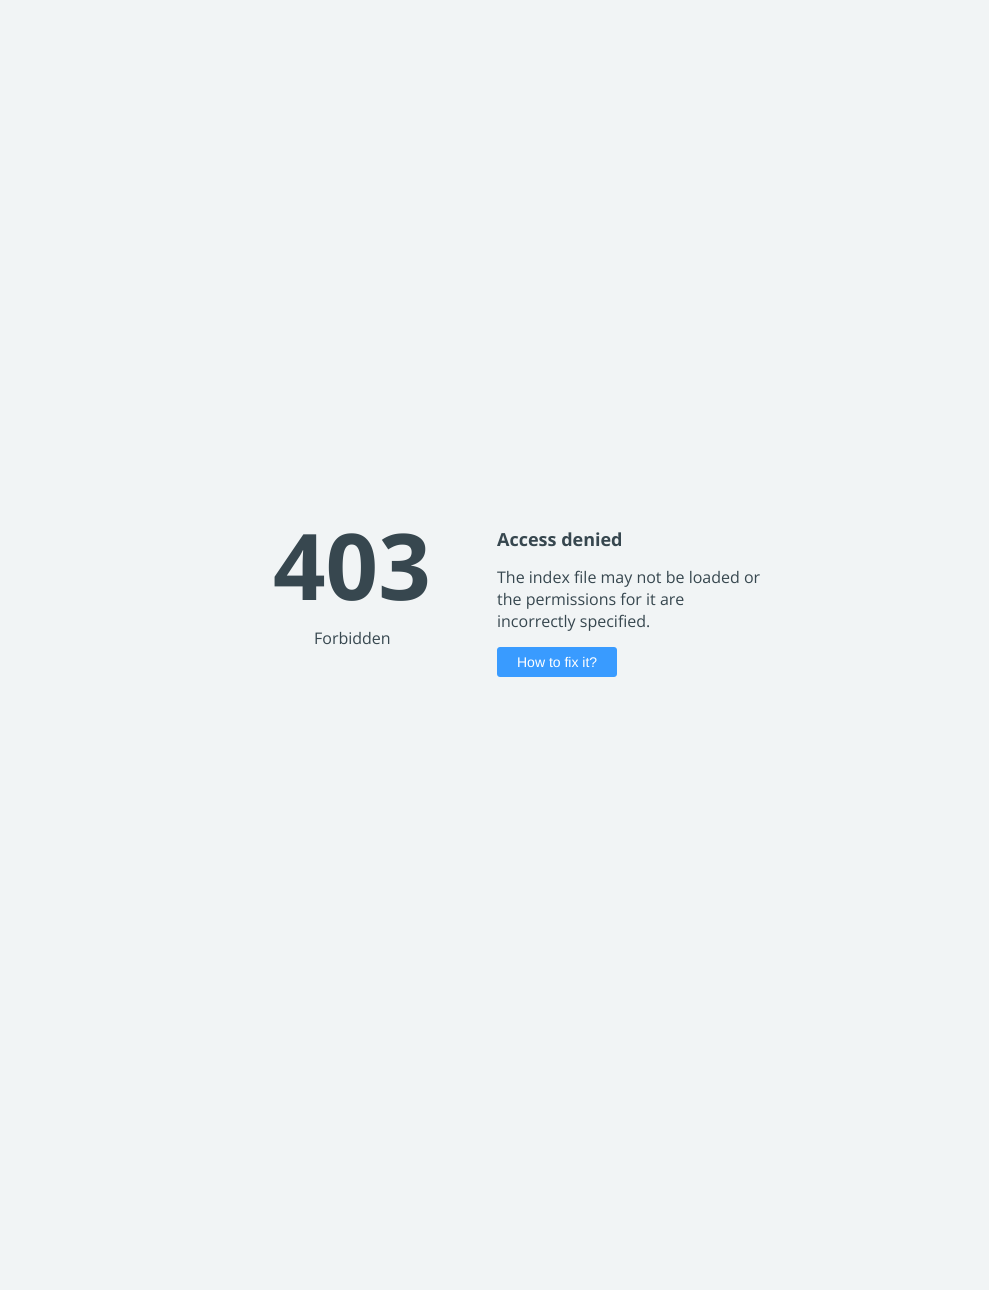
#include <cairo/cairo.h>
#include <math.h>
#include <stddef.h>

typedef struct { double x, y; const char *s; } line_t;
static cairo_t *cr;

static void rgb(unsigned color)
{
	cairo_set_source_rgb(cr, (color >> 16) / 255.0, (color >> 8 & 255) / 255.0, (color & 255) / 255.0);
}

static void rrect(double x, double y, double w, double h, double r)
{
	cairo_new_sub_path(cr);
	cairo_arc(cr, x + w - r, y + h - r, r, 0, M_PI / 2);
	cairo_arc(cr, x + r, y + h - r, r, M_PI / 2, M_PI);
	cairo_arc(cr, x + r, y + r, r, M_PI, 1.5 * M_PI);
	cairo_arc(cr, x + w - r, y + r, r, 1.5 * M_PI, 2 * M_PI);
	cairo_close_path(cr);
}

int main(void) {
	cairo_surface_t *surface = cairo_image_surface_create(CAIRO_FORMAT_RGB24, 989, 1290);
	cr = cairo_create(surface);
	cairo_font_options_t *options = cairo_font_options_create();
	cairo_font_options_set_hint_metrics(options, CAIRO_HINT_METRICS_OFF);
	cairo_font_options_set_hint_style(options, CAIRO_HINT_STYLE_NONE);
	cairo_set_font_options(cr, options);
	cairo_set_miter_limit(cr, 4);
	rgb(0xf1f4f5);
	cairo_paint(cr);
	rgb(0x399bff);
	rrect(497, 647, 120, 30, 3);
	cairo_fill(cr);
	cairo_select_font_face(cr, "Open Sans", CAIRO_FONT_SLANT_NORMAL, CAIRO_FONT_WEIGHT_BOLD);
	cairo_set_font_size(cr, 92);
	rgb(0x37474f);
	cairo_move_to(cr, 273, 600);
	cairo_show_text(cr, "403");
	cairo_select_font_face(cr, "Open Sans", CAIRO_FONT_SLANT_NORMAL, CAIRO_FONT_WEIGHT_NORMAL);
	cairo_set_font_size(cr, 16);
	cairo_move_to(cr, 314, 644);
	cairo_show_text(cr, "Forbidden");
	cairo_select_font_face(cr, "Open Sans", CAIRO_FONT_SLANT_NORMAL, CAIRO_FONT_WEIGHT_BOLD);
	cairo_set_font_size(cr, 18);
	cairo_move_to(cr, 497, 546);
	cairo_show_text(cr, "Access denied");
	cairo_select_font_face(cr, "Open Sans", CAIRO_FONT_SLANT_NORMAL, CAIRO_FONT_WEIGHT_NORMAL);
	cairo_set_font_size(cr, 16);
	{
		static const line_t items[] = {
			{497, 583, "The index file may not be loaded or"},
			{497, 605, "the permissions for it are"},
			{497, 627, "incorrectly specified."},
		};
		for (size_t i = 0; i < sizeof items / sizeof *items; i++) {
			cairo_move_to(cr, items[i].x, items[i].y);
			cairo_show_text(cr, items[i].s);
		}
	}
	cairo_select_font_face(cr, "Liberation Sans", CAIRO_FONT_SLANT_NORMAL, CAIRO_FONT_WEIGHT_NORMAL);
	cairo_set_font_size(cr, 14);
	rgb(0xffffff);
	cairo_move_to(cr, 517, 667);
	cairo_show_text(cr, "How to fix it?");
	cairo_surface_write_to_png(surface, "page.png");
	cairo_font_options_destroy(options);
	cairo_destroy(cr);
	cairo_surface_destroy(surface);
	return 0;
}
